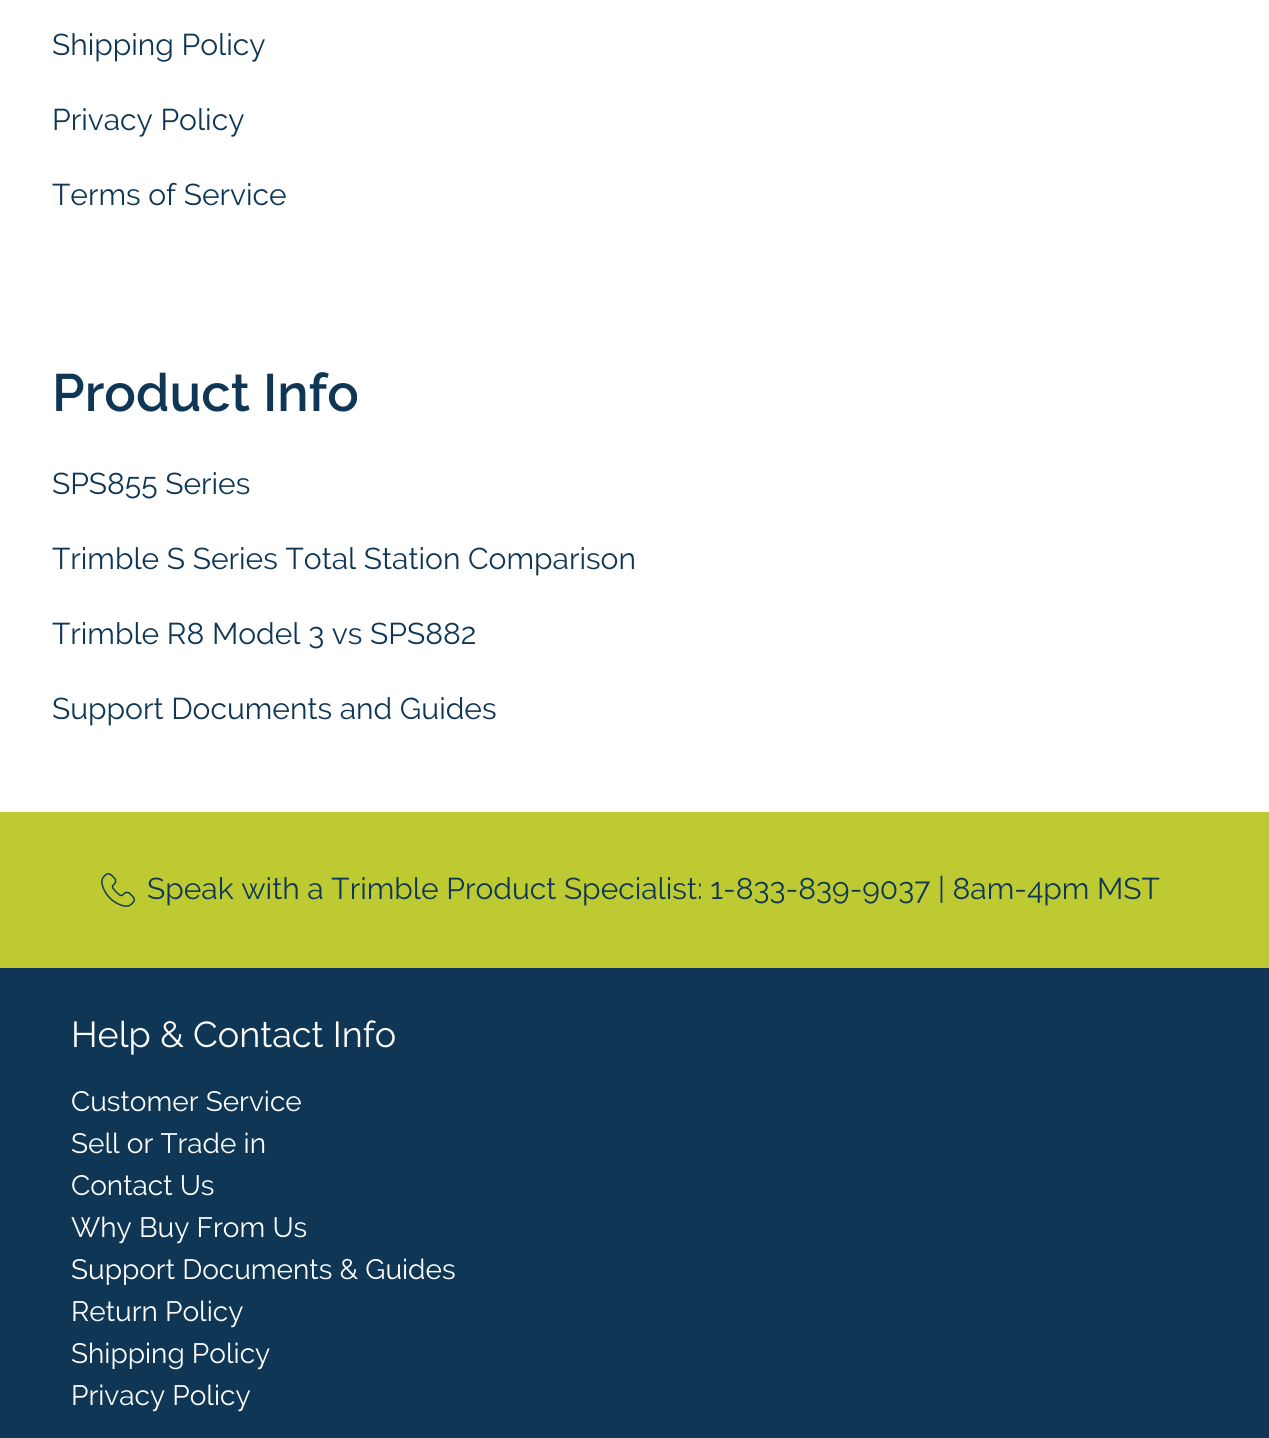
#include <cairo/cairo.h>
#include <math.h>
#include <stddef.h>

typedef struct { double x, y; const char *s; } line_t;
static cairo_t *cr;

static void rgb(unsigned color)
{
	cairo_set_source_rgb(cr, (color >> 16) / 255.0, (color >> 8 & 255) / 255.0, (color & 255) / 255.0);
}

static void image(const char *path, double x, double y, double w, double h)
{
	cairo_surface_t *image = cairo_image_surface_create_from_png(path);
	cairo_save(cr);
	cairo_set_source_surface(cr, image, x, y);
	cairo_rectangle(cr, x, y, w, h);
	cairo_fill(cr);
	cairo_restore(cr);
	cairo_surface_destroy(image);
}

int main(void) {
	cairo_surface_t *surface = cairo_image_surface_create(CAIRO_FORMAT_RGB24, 1269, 1438);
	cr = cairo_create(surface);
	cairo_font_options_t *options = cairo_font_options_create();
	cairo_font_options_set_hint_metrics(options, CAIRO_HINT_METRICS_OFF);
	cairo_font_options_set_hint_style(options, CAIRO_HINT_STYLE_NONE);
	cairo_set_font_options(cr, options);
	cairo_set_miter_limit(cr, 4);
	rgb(0xffffff);
	cairo_paint(cr);
	rgb(0xbeca31);
	cairo_rectangle(cr, 0, 812, 1269, 156);
	cairo_fill(cr);
	image("img/1.png", 101, 873, 34, 34);
	rgb(0x0f3755);
	cairo_rectangle(cr, 0, 968, 1269, 470);
	cairo_fill(cr);
	cairo_select_font_face(cr, "Raleway", CAIRO_FONT_SLANT_NORMAL, CAIRO_FONT_WEIGHT_NORMAL);
	cairo_set_font_size(cr, 30);
	{
		static const line_t items[] = {
			{52, 55, "Shipping Policy"},
			{52, 130, "Privacy Policy"},
			{52, 205, "Terms of Service"},
		};
		for (size_t i = 0; i < sizeof items / sizeof *items; i++) {
			cairo_move_to(cr, items[i].x, items[i].y);
			cairo_show_text(cr, items[i].s);
		}
	}
	cairo_select_font_face(cr, "Raleway SemiBold", CAIRO_FONT_SLANT_NORMAL, CAIRO_FONT_WEIGHT_NORMAL);
	cairo_set_font_size(cr, 52.5);
	cairo_move_to(cr, 52, 411);
	cairo_show_text(cr, "Product Info");
	cairo_select_font_face(cr, "Raleway", CAIRO_FONT_SLANT_NORMAL, CAIRO_FONT_WEIGHT_NORMAL);
	cairo_set_font_size(cr, 30);
	{
		static const line_t items[] = {
			{52, 494, "SPS855 Series"},
			{52, 569, "Trimble S Series Total Station Comparison"},
			{52, 644, "Trimble R8 Model 3 vs SPS882"},
			{52, 719, "Support Documents and Guides"},
			{147, 899, "Speak with a Trimble Product Specialist: 1-833-839-9037 | 8am-4pm MST"},
		};
		for (size_t i = 0; i < sizeof items / sizeof *items; i++) {
			cairo_move_to(cr, items[i].x, items[i].y);
			cairo_show_text(cr, items[i].s);
		}
	}
	cairo_set_font_size(cr, 36);
	rgb(0xffffff);
	cairo_move_to(cr, 71, 1047);
	cairo_show_text(cr, "Help & Contact Info");
	cairo_set_font_size(cr, 28);
	{
		static const line_t items[] = {
			{71, 1111, "Customer Service"},
			{71, 1153, "Sell or Trade in"},
			{71, 1195, "Contact Us"},
			{71, 1237, "Why Buy From Us"},
			{71, 1279, "Support Documents & Guides"},
			{71, 1321, "Return Policy"},
			{71, 1363, "Shipping Policy"},
			{71, 1405, "Privacy Policy"},
		};
		for (size_t i = 0; i < sizeof items / sizeof *items; i++) {
			cairo_move_to(cr, items[i].x, items[i].y);
			cairo_show_text(cr, items[i].s);
		}
	}
	cairo_surface_write_to_png(surface, "page.png");
	cairo_font_options_destroy(options);
	cairo_destroy(cr);
	cairo_surface_destroy(surface);
	return 0;
}
